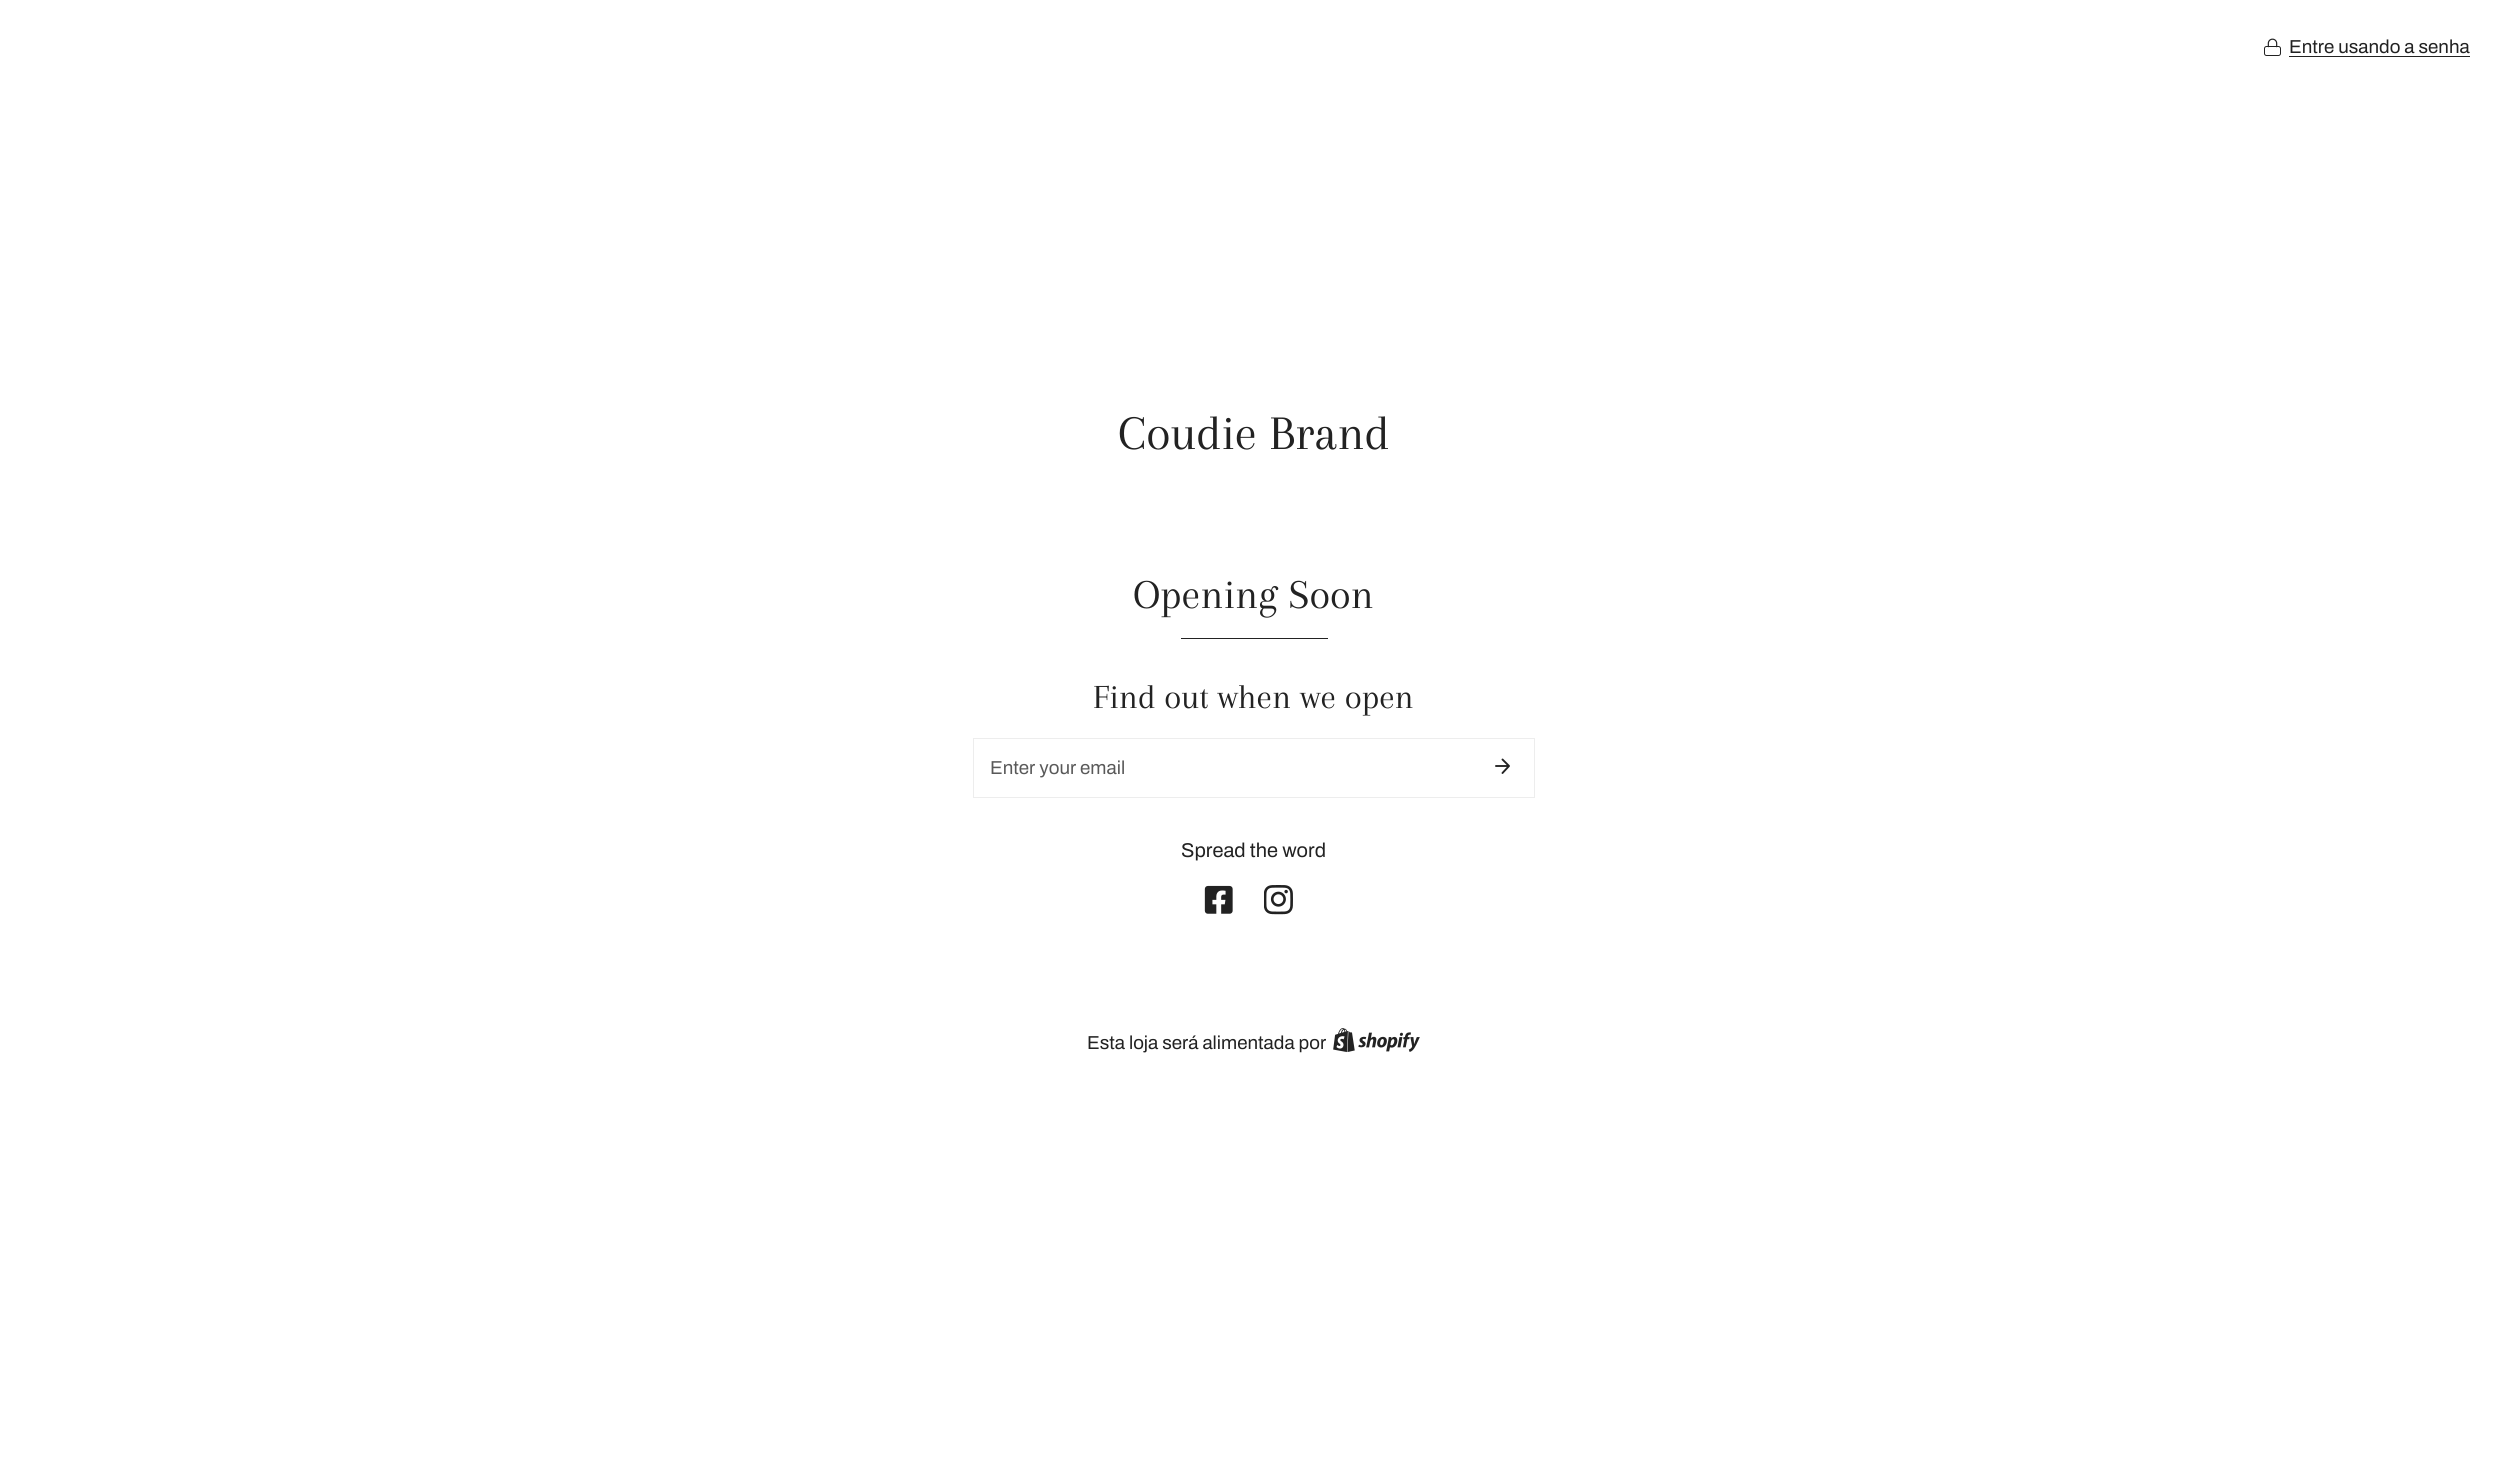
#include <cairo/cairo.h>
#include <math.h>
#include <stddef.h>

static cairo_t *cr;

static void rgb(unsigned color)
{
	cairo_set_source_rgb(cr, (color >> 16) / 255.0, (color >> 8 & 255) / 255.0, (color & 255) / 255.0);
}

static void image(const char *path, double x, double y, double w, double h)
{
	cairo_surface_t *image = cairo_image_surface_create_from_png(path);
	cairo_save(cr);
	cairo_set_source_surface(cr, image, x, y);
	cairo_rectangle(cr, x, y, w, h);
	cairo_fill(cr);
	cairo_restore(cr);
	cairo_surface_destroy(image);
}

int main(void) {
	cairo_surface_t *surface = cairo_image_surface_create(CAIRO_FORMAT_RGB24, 2507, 1461);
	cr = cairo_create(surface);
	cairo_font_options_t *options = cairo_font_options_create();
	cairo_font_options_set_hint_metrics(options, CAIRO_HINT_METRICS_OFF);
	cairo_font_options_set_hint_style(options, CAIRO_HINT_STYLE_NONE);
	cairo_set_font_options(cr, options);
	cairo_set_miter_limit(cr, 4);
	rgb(0xffffff);
	cairo_paint(cr);
	image("img/1.png", 2264, 38, 17, 18);
	rgb(0x222222);
	cairo_rectangle(cr, 2289, 56, 181, 1);
	cairo_fill(cr);
	cairo_rectangle(cr, 1181, 638, 147, 1);
	cairo_fill(cr);
	cairo_rectangle(cr, 973.5, 738.5, 561, 59);
	rgb(0xededed);
	cairo_set_line_width(cr, 1);
	cairo_stroke(cr);
	cairo_new_path(cr);
	cairo_move_to(cr, 1496, 766);
	cairo_line_to(cr, 1509, 766);
	cairo_move_to(cr, 1502.5, 759.5);
	cairo_line_to(cr, 1509, 766);
	cairo_line_to(cr, 1502.5, 773);
	rgb(0x222222);
	cairo_set_line_width(cr, 1.9);
	cairo_set_line_cap(cr, CAIRO_LINE_CAP_ROUND);
	cairo_set_line_join(cr, CAIRO_LINE_JOIN_ROUND);
	cairo_stroke(cr);
	image("img/2.png", 1204, 885, 29, 29);
	image("img/3.png", 1264, 885, 29, 30);
	image("img/4.png", 1333, 1028, 87, 25);
	cairo_select_font_face(cr, "Archivo", CAIRO_FONT_SLANT_NORMAL, CAIRO_FONT_WEIGHT_NORMAL);
	cairo_set_font_size(cr, 18.75);
	cairo_move_to(cr, 2289, 53);
	cairo_show_text(cr, "Entre usando a senha");
	cairo_select_font_face(cr, "Arapey", CAIRO_FONT_SLANT_NORMAL, CAIRO_FONT_WEIGHT_NORMAL);
	cairo_set_font_size(cr, 50);
	cairo_move_to(cr, 1118, 449);
	cairo_show_text(cr, "Coudie Brand");
	cairo_set_font_size(cr, 42.5);
	cairo_move_to(cr, 1133, 608);
	cairo_show_text(cr, "Opening Soon");
	cairo_set_font_size(cr, 35);
	cairo_move_to(cr, 1093, 708);
	cairo_show_text(cr, "Find out when we open");
	cairo_select_font_face(cr, "Archivo", CAIRO_FONT_SLANT_NORMAL, CAIRO_FONT_WEIGHT_NORMAL);
	cairo_set_font_size(cr, 18.75);
	rgb(0x595959);
	cairo_move_to(cr, 990, 774);
	cairo_show_text(cr, "Enter your email");
	cairo_set_font_size(cr, 20);
	rgb(0x222222);
	cairo_move_to(cr, 1181, 857);
	cairo_show_text(cr, "Spread the word");
	cairo_set_font_size(cr, 18.75);
	cairo_move_to(cr, 1087, 1049);
	cairo_show_text(cr, "Esta loja será alimentada por");
	cairo_surface_write_to_png(surface, "page.png");
	cairo_font_options_destroy(options);
	cairo_destroy(cr);
	cairo_surface_destroy(surface);
	return 0;
}
